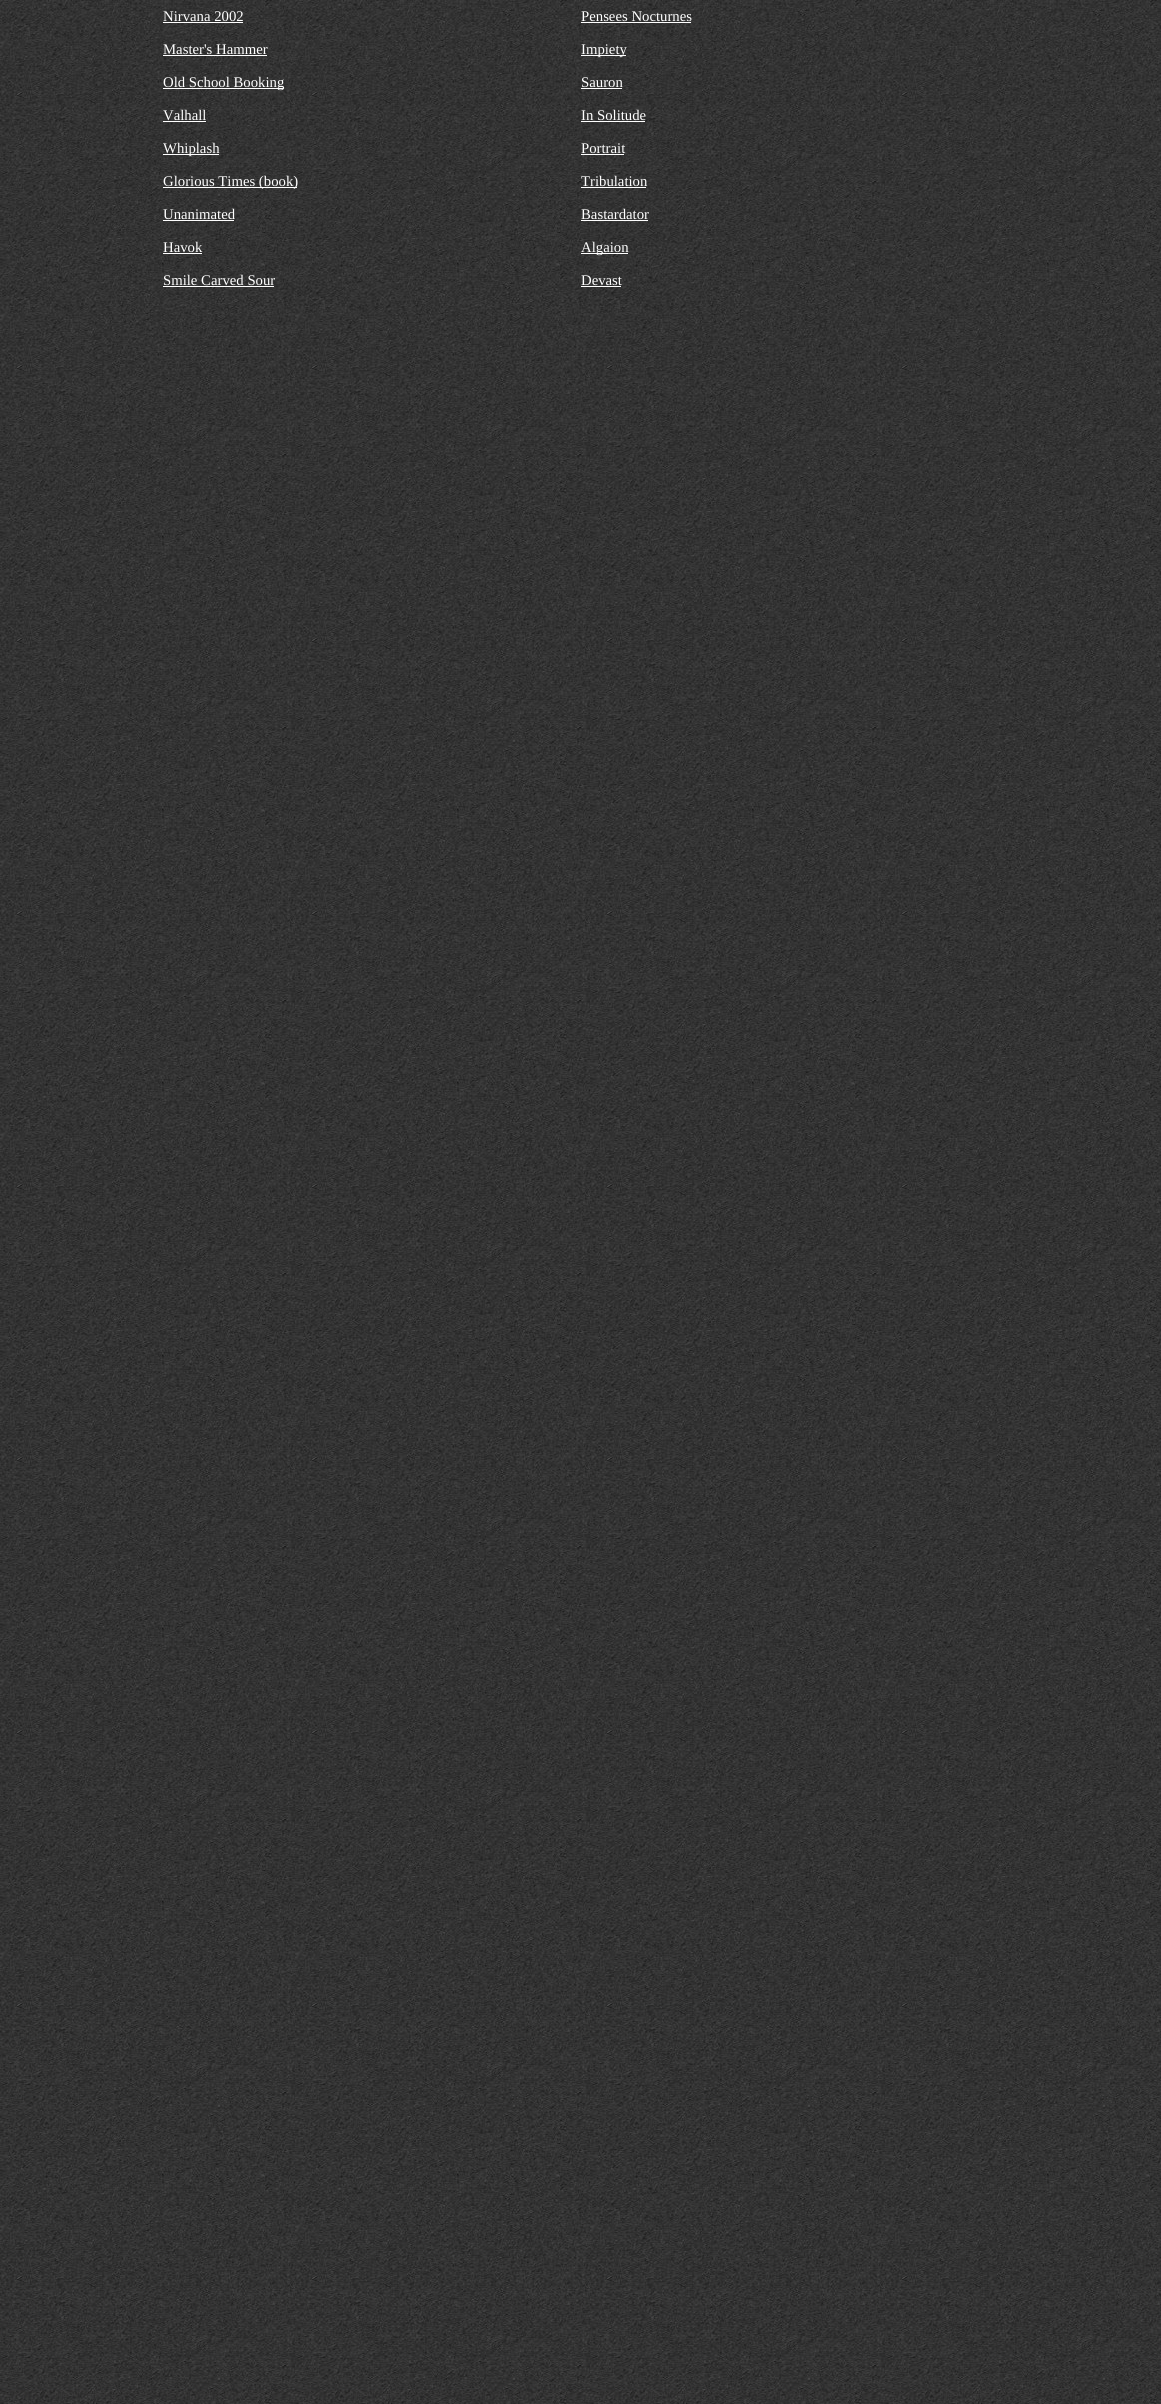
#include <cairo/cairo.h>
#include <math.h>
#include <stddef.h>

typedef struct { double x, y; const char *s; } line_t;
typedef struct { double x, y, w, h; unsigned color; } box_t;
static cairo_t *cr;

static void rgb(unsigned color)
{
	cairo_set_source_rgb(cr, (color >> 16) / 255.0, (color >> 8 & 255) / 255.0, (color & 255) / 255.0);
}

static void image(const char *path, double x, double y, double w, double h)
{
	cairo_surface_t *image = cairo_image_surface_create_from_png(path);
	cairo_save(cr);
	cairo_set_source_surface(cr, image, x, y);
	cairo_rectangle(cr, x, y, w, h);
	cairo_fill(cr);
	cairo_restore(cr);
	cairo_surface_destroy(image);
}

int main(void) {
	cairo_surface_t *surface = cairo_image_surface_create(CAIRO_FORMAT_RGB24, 1161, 2404);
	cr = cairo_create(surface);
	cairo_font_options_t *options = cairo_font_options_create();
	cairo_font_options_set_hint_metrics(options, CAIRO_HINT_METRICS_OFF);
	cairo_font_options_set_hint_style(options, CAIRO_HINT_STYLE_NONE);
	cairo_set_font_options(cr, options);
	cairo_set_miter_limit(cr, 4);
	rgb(0xffffff);
	cairo_paint(cr);
	image("img/1.png", 0, 0, 1161, 2404);
	{
		static const box_t items[] = {
			{163, 22, 80, 1, 0xffffff},
			{163, 55, 104, 1, 0xffffff},
			{163, 88, 120, 1, 0xffffff},
			{163, 121, 43, 1, 0xffffff},
			{163, 154, 56, 1, 0xffffff},
			{163, 187, 134, 1, 0xffffff},
			{163, 220, 71, 1, 0xffffff},
			{163, 253, 39, 1, 0xffffff},
			{163, 286, 111, 1, 0xffffff},
			{581, 22, 110, 1, 0xffffff},
			{581, 55, 45, 1, 0xffffff},
			{581, 88, 41, 1, 0xffffff},
			{581, 121, 64, 1, 0xffffff},
			{581, 154, 43, 1, 0xffffff},
			{581, 187, 65, 1, 0xffffff},
			{581, 220, 67, 1, 0xffffff},
			{581, 253, 47, 1, 0xffffff},
			{581, 286, 40, 1, 0xffffff},
		};
		for (size_t i = 0; i < sizeof items / sizeof *items; i++) {
			rgb(items[i].color);
			cairo_rectangle(cr, items[i].x, items[i].y, items[i].w, items[i].h);
			cairo_fill(cr);
		}
	}
	cairo_select_font_face(cr, "Liberation Serif", CAIRO_FONT_SLANT_NORMAL, CAIRO_FONT_WEIGHT_NORMAL);
	cairo_set_font_size(cr, 14.75);
	{
		static const line_t items[] = {
			{163, 21, "Nirvana 2002"},
			{163, 54, "Master's Hammer"},
			{163, 87, "Old School Booking"},
			{163, 120, "Valhall"},
			{163, 153, "Whiplash"},
			{163, 186, "Glorious Times (book)"},
			{163, 219, "Unanimated"},
			{163, 252, "Havok"},
			{163, 285, "Smile Carved Sour"},
			{581, 21, "Pensees Nocturnes"},
			{581, 54, "Impiety"},
			{581, 87, "Sauron"},
			{581, 120, "In Solitude"},
			{581, 153, "Portrait"},
			{581, 186, "Tribulation"},
			{581, 219, "Bastardator"},
			{581, 252, "Algaion"},
			{581, 285, "Devast"},
		};
		for (size_t i = 0; i < sizeof items / sizeof *items; i++) {
			cairo_move_to(cr, items[i].x, items[i].y);
			cairo_show_text(cr, items[i].s);
		}
	}
	cairo_surface_write_to_png(surface, "page.png");
	cairo_font_options_destroy(options);
	cairo_destroy(cr);
	cairo_surface_destroy(surface);
	return 0;
}
